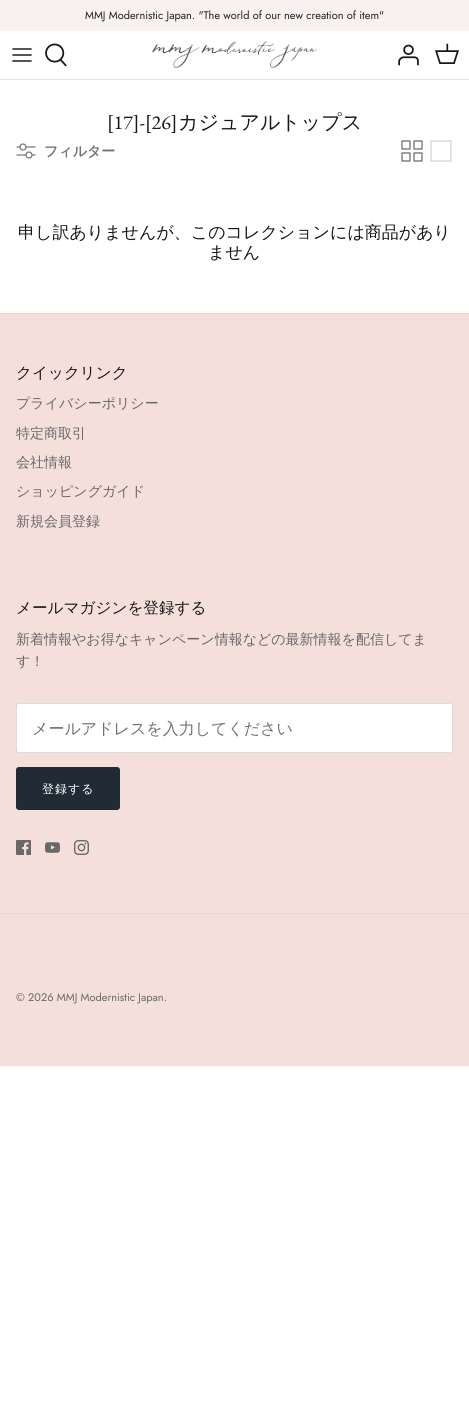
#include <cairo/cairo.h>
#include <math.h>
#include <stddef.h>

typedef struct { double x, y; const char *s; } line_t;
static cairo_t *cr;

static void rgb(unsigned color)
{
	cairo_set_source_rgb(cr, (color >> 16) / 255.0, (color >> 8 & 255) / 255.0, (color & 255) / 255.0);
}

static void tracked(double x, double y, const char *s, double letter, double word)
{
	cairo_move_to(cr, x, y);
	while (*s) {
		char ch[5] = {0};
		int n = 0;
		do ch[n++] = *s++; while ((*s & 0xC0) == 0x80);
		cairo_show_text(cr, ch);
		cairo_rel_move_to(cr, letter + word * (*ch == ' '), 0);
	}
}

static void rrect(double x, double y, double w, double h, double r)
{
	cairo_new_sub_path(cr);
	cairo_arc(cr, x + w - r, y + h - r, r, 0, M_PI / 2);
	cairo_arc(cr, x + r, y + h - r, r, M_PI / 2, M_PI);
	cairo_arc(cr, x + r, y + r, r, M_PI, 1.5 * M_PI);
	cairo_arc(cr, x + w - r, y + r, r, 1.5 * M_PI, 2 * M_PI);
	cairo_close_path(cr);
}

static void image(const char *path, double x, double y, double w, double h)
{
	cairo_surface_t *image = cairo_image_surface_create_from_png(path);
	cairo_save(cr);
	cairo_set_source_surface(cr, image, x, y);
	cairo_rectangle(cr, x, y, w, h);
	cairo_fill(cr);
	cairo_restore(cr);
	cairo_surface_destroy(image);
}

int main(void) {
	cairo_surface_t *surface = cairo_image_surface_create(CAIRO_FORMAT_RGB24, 469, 1426);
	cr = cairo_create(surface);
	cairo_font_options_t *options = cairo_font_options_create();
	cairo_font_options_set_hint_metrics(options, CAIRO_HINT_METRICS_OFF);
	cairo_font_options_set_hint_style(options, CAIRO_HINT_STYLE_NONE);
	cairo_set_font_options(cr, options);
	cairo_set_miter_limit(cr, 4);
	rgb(0xffffff);
	cairo_paint(cr);
	rgb(0xf7f1f0);
	cairo_rectangle(cr, 0, 0, 469, 31);
	cairo_fill(cr);
	rgb(0xdfe3e8);
	cairo_rectangle(cr, 0, 79, 469, 1);
	cairo_fill(cr);
	image("img/1.png", 12, 48, 20, 14);
	image("img/2.png", 45, 43, 22, 24);
	image("img/3.png", 152, 41, 165, 28);
	image("img/4.png", 398, 44, 21, 22);
	image("img/5.png", 435, 43, 24, 21);
	image("img/6.png", 16, 143, 20, 16);
	image("img/7.png", 401, 140, 22, 22);
	cairo_new_path(cr);
	cairo_move_to(cr, 431, 141);
	cairo_line_to(cr, 451, 141);
	cairo_line_to(cr, 451, 161);
	cairo_line_to(cr, 431, 161);
	cairo_line_to(cr, 431, 141);
	rgb(0xd4d4d5);
	cairo_set_line_width(cr, 1.3);
	cairo_set_line_cap(cr, CAIRO_LINE_CAP_ROUND);
	cairo_set_line_join(cr, CAIRO_LINE_JOIN_ROUND);
	cairo_stroke(cr);
	rgb(0xf4dfdb);
	cairo_rectangle(cr, 0, 314, 469, 752);
	cairo_fill(cr);
	rgb(0xecd6d1);
	cairo_rectangle(cr, 0, 313, 469, 1);
	cairo_fill(cr);
	rgb(0xffffff);
	rrect(16.5, 703.5, 436, 49, 2.5);
	cairo_fill_preserve(cr);
	rgb(0xdbdcdc);
	cairo_set_line_width(cr, 1);
	cairo_set_line_cap(cr, CAIRO_LINE_CAP_BUTT);
	cairo_set_line_join(cr, CAIRO_LINE_JOIN_MITER);
	cairo_stroke(cr);
	rgb(0x212b36);
	rrect(16.5, 767.5, 103, 42, 2.5);
	cairo_fill_preserve(cr);
	cairo_stroke(cr);
	image("img/8.png", 16, 840, 15, 15);
	image("img/9.png", 45, 842, 15, 11);
	image("img/10.png", 74, 840, 15, 15);
	rgb(0xecd6d1);
	cairo_rectangle(cr, 0, 913, 469, 1);
	cairo_fill(cr);
	cairo_select_font_face(cr, "Jost", CAIRO_FONT_SLANT_NORMAL, CAIRO_FONT_WEIGHT_NORMAL);
	cairo_set_font_size(cr, 11);
	rgb(0x212121);
	cairo_move_to(cr, 85, 19);
	cairo_show_text(cr, "MMJ Modernistic Japan. \"The world of our new creation of item\"");
	cairo_select_font_face(cr, "EB Garamond", CAIRO_FONT_SLANT_NORMAL, CAIRO_FONT_WEIGHT_NORMAL);
	cairo_set_font_size(cr, 20);
	rgb(0x171717);
	cairo_move_to(cr, 107, 129);
	cairo_show_text(cr, "[17]-[26]");
	cairo_select_font_face(cr, "WenQuanYi Zen Hei Medium", CAIRO_FONT_SLANT_NORMAL, CAIRO_FONT_WEIGHT_NORMAL);
	cairo_move_to(cr, 178, 129);
	cairo_show_text(cr, "カジュアルトップス");
	cairo_select_font_face(cr, "WenQuanYi Zen Hei", CAIRO_FONT_SLANT_NORMAL, CAIRO_FONT_WEIGHT_BOLD);
	cairo_set_font_size(cr, 14);
	rgb(0x707173);
	cairo_move_to(cr, 44, 156);
	cairo_show_text(cr, "フィルター");
	cairo_select_font_face(cr, "WenQuanYi Zen Hei Medium", CAIRO_FONT_SLANT_NORMAL, CAIRO_FONT_WEIGHT_NORMAL);
	cairo_set_font_size(cr, 17);
	rgb(0x171717);
	cairo_move_to(cr, 18, 238);
	cairo_show_text(cr, "申し訳ありませんが、このコレクションには商品があり");
	cairo_move_to(cr, 208, 258);
	cairo_show_text(cr, "ません");
	cairo_set_font_size(cr, 15.6);
	cairo_move_to(cr, 16, 378);
	cairo_show_text(cr, "クイックリンク");
	cairo_set_font_size(cr, 14);
	rgb(0x676869);
	{
		static const line_t items[] = {
			{16, 408, "プライバシーポリシー"},
			{16, 438, "特定商取引"},
			{16, 467, "会社情報"},
			{16, 496, "ショッピングガイド"},
			{16, 526, "新規会員登録"},
		};
		for (size_t i = 0; i < sizeof items / sizeof *items; i++) {
			cairo_move_to(cr, items[i].x, items[i].y);
			cairo_show_text(cr, items[i].s);
		}
	}
	cairo_set_font_size(cr, 15.6);
	rgb(0x171717);
	cairo_move_to(cr, 16, 613);
	cairo_show_text(cr, "メールマガジンを登録する");
	cairo_set_font_size(cr, 14);
	rgb(0x676869);
	cairo_move_to(cr, 16, 644);
	cairo_show_text(cr, "新着情報やお得なキャンペーン情報などの最新情報を配信してま");
	cairo_move_to(cr, 16, 666);
	cairo_show_text(cr, "す！");
	cairo_set_font_size(cr, 16);
	rgb(0x707173);
	cairo_move_to(cr, 32, 734);
	cairo_show_text(cr, "メールアドレスを入力してください");
	cairo_set_font_size(cr, 12);
	rgb(0xffffff);
	tracked(42, 793, "登録する", 1, 0);
	cairo_select_font_face(cr, "Jost", CAIRO_FONT_SLANT_NORMAL, CAIRO_FONT_WEIGHT_NORMAL);
	cairo_set_font_size(cr, 11);
	rgb(0x676869);
	cairo_move_to(cr, 16, 1001);
	cairo_show_text(cr, "© 2026 MMJ Modernistic Japan.");
	cairo_surface_write_to_png(surface, "page.png");
	cairo_font_options_destroy(options);
	cairo_destroy(cr);
	cairo_surface_destroy(surface);
	return 0;
}
